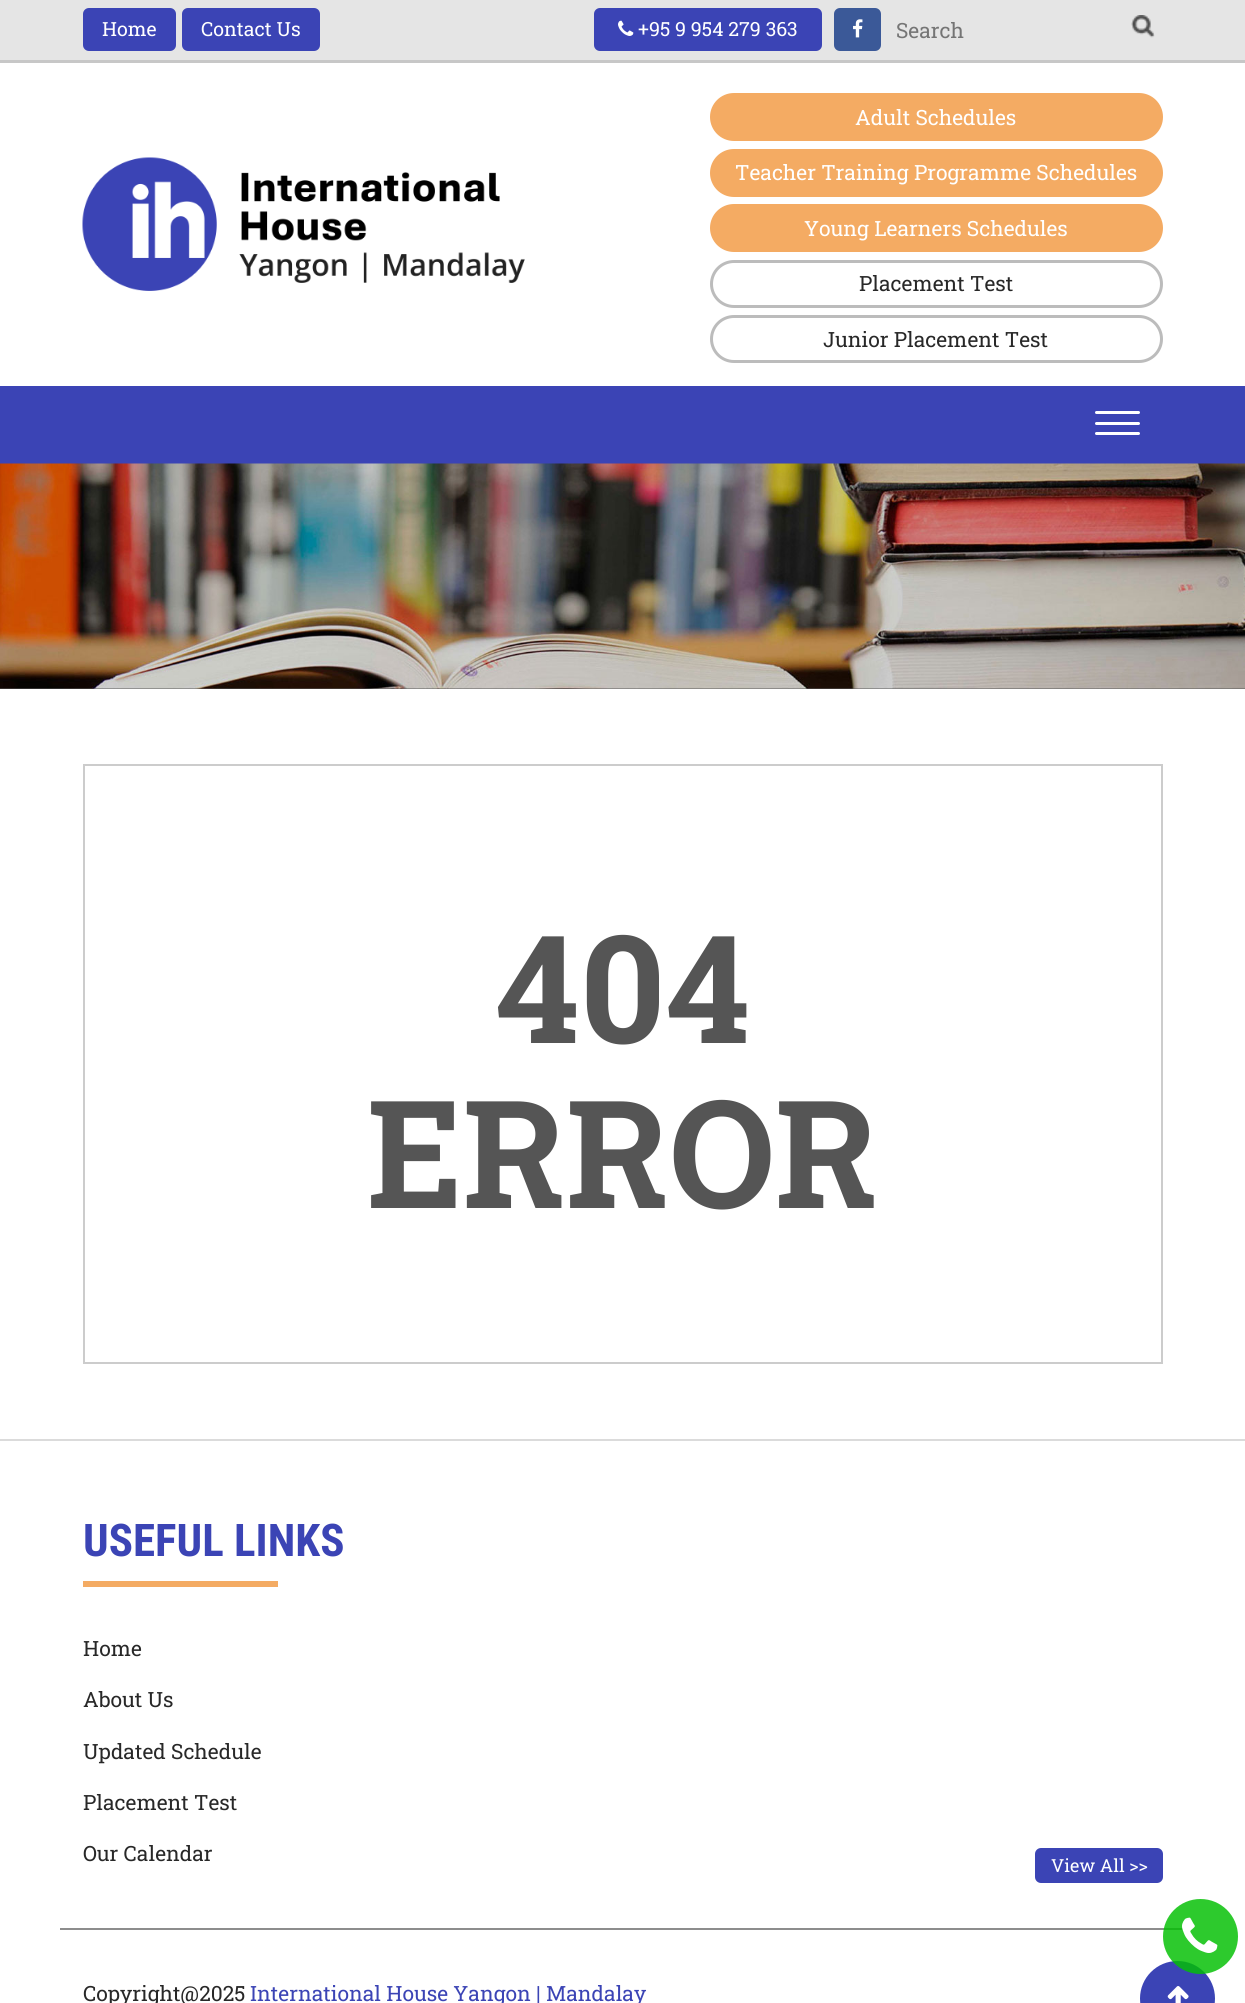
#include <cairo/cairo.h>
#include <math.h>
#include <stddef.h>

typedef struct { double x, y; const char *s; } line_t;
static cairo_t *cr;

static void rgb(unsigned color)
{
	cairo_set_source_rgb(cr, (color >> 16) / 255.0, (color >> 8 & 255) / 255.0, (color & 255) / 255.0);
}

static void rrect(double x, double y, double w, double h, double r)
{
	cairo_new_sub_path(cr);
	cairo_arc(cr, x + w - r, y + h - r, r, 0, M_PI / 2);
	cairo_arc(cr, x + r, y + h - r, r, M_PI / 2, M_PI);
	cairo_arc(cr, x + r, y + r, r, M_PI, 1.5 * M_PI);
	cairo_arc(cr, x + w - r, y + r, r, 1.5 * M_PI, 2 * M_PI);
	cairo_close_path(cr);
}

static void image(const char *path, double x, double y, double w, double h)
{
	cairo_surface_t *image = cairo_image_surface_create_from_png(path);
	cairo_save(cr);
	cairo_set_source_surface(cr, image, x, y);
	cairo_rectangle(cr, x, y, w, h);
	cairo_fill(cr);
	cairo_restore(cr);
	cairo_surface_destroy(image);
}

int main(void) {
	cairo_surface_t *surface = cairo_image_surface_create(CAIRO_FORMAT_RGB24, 1245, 2003);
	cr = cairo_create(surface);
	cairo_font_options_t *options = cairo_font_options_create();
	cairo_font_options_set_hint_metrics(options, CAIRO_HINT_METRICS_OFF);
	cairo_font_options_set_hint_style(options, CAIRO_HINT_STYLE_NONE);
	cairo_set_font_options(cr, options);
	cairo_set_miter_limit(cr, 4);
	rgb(0xffffff);
	cairo_paint(cr);
	rgb(0xe5e5e5);
	cairo_rectangle(cr, 0, 0, 1245, 60);
	cairo_fill(cr);
	rgb(0xc7c7c7);
	cairo_rectangle(cr, 0, 60, 1245, 3);
	cairo_fill(cr);
	rgb(0x3b44b5);
	rrect(83, 8, 93, 43, 6);
	cairo_fill(cr);
	rrect(182, 8, 138, 43, 6);
	cairo_fill(cr);
	rrect(594, 8, 228, 43, 6);
	cairo_fill(cr);
	image("img/1.png", 618, 20, 16, 16);
	rgb(0x3b5998);
	rrect(834, 8, 47, 43, 6);
	cairo_fill(cr);
	image("img/2.png", 853, 19, 10, 19);
	image("img/3.png", 1131, 15, 24, 23);
	image("img/4.png", 82, 157, 443, 134);
	rgb(0xf4ab63);
	rrect(711.5, 94.5, 450, 45, 22.5);
	cairo_fill_preserve(cr);
	cairo_set_line_width(cr, 3);
	cairo_stroke(cr);
	rrect(711.5, 150.5, 450, 45, 22.5);
	cairo_fill_preserve(cr);
	cairo_stroke(cr);
	rrect(711.5, 205.5, 450, 45, 22.5);
	cairo_fill_preserve(cr);
	cairo_stroke(cr);
	rrect(711.5, 261.5, 450, 45, 22.5);
	rgb(0xbcbcbc);
	cairo_stroke(cr);
	rrect(711.5, 316.5, 450, 45, 22.5);
	cairo_stroke(cr);
	rgb(0x8d8d8d);
	cairo_rectangle(cr, 60, 1928, 1125, 2);
	cairo_fill(cr);
	rgb(0x3b44b5);
	cairo_arc(cr, 1177.5, 1998.5, 37.5, 0, 2 * M_PI);
	cairo_fill(cr);
	cairo_set_source_rgba(cr, 0.012, 0.749, 0.012, 0.83);
	cairo_arc(cr, 1200.5, 1936.5, 37.5, 0, 2 * M_PI);
	cairo_fill(cr);
	image("img/5.png", 1182, 1917, 36, 36);
	rgb(0x3b44b5);
	cairo_rectangle(cr, 0, 386, 1245, 78);
	cairo_fill(cr);
	rgb(0xffffff);
	rrect(1095, 411, 45, 3, 1.5);
	cairo_fill(cr);
	rrect(1095, 422, 45, 3, 1.5);
	cairo_fill(cr);
	rrect(1095, 432, 45, 3, 1.5);
	cairo_fill(cr);
	rgb(0x5a5a5a);
	cairo_rectangle(cr, 0, 688, 1245, 1);
	cairo_fill(cr);
	image("img/6.png", 0, 463, 1245, 226);
	cairo_rectangle(cr, 84, 765, 1078, 598);
	rgb(0xcccccc);
	cairo_set_line_width(cr, 2);
	cairo_stroke(cr);
	rgb(0xdbdbdb);
	cairo_rectangle(cr, 0, 1439, 1245, 2);
	cairo_fill(cr);
	rgb(0xf4ab63);
	cairo_rectangle(cr, 83, 1581, 195, 6);
	cairo_fill(cr);
	rgb(0x3b44b5);
	rrect(1035, 1848, 128, 35, 6);
	cairo_fill(cr);
	image("img/7.png", 1167, 1986, 22, 17);
	cairo_select_font_face(cr, "Roboto Slab", CAIRO_FONT_SLANT_NORMAL, CAIRO_FONT_WEIGHT_NORMAL);
	cairo_set_font_size(cr, 19.5);
	rgb(0xffffff);
	{
		static const line_t items[] = {
			{102, 36, "Home"},
			{201, 36, "Contact Us"},
			{638, 36, "+95 9 954 279 363"},
		};
		for (size_t i = 0; i < sizeof items / sizeof *items; i++) {
			cairo_move_to(cr, items[i].x, items[i].y);
			cairo_show_text(cr, items[i].s);
		}
	}
	cairo_set_font_size(cr, 21);
	rgb(0x757575);
	cairo_move_to(cr, 896, 38);
	cairo_show_text(cr, "Search");
	rgb(0xffffff);
	{
		static const line_t items[] = {
			{855, 125, "Adult Schedules"},
			{735, 180, "Teacher Training Programme Schedules"},
			{804, 236, "Young Learners Schedules"},
		};
		for (size_t i = 0; i < sizeof items / sizeof *items; i++) {
			cairo_move_to(cr, items[i].x, items[i].y);
			cairo_show_text(cr, items[i].s);
		}
	}
	rgb(0x282828);
	cairo_move_to(cr, 859, 291);
	cairo_show_text(cr, "Placement Test");
	cairo_move_to(cr, 823, 347);
	cairo_show_text(cr, "Junior Placement Test");
	cairo_select_font_face(cr, "Roboto Slab", CAIRO_FONT_SLANT_NORMAL, CAIRO_FONT_WEIGHT_BOLD);
	cairo_set_font_size(cr, 150);
	rgb(0x555555);
	cairo_move_to(cr, 495, 1043);
	cairo_show_text(cr, "404");
	cairo_move_to(cr, 367, 1208);
	cairo_show_text(cr, "ERROR");
	cairo_select_font_face(cr, "Roboto Condensed", CAIRO_FONT_SLANT_NORMAL, CAIRO_FONT_WEIGHT_BOLD);
	cairo_set_font_size(cr, 45);
	rgb(0x3b44b5);
	cairo_move_to(cr, 83, 1556);
	cairo_show_text(cr, "USEFUL LINKS");
	cairo_select_font_face(cr, "Roboto Slab", CAIRO_FONT_SLANT_NORMAL, CAIRO_FONT_WEIGHT_NORMAL);
	cairo_set_font_size(cr, 21);
	rgb(0x282828);
	{
		static const line_t items[] = {
			{83, 1656, "Home"},
			{83, 1707, "About Us"},
			{83, 1759, "Updated Schedule"},
			{83, 1810, "Placement Test"},
			{83, 1861, "Our Calendar"},
		};
		for (size_t i = 0; i < sizeof items / sizeof *items; i++) {
			cairo_move_to(cr, items[i].x, items[i].y);
			cairo_show_text(cr, items[i].s);
		}
	}
	cairo_set_font_size(cr, 18);
	rgb(0xffffff);
	cairo_move_to(cr, 1051, 1872);
	cairo_show_text(cr, "View All >>");
	cairo_set_font_size(cr, 21);
	rgb(0x282828);
	cairo_move_to(cr, 83, 2001);
	cairo_show_text(cr, "Copyright@2025");
	rgb(0x3b44b5);
	cairo_move_to(cr, 250, 2001);
	cairo_show_text(cr, "International House Yangon | Mandalay");
	cairo_surface_write_to_png(surface, "page.png");
	cairo_font_options_destroy(options);
	cairo_destroy(cr);
	cairo_surface_destroy(surface);
	return 0;
}
